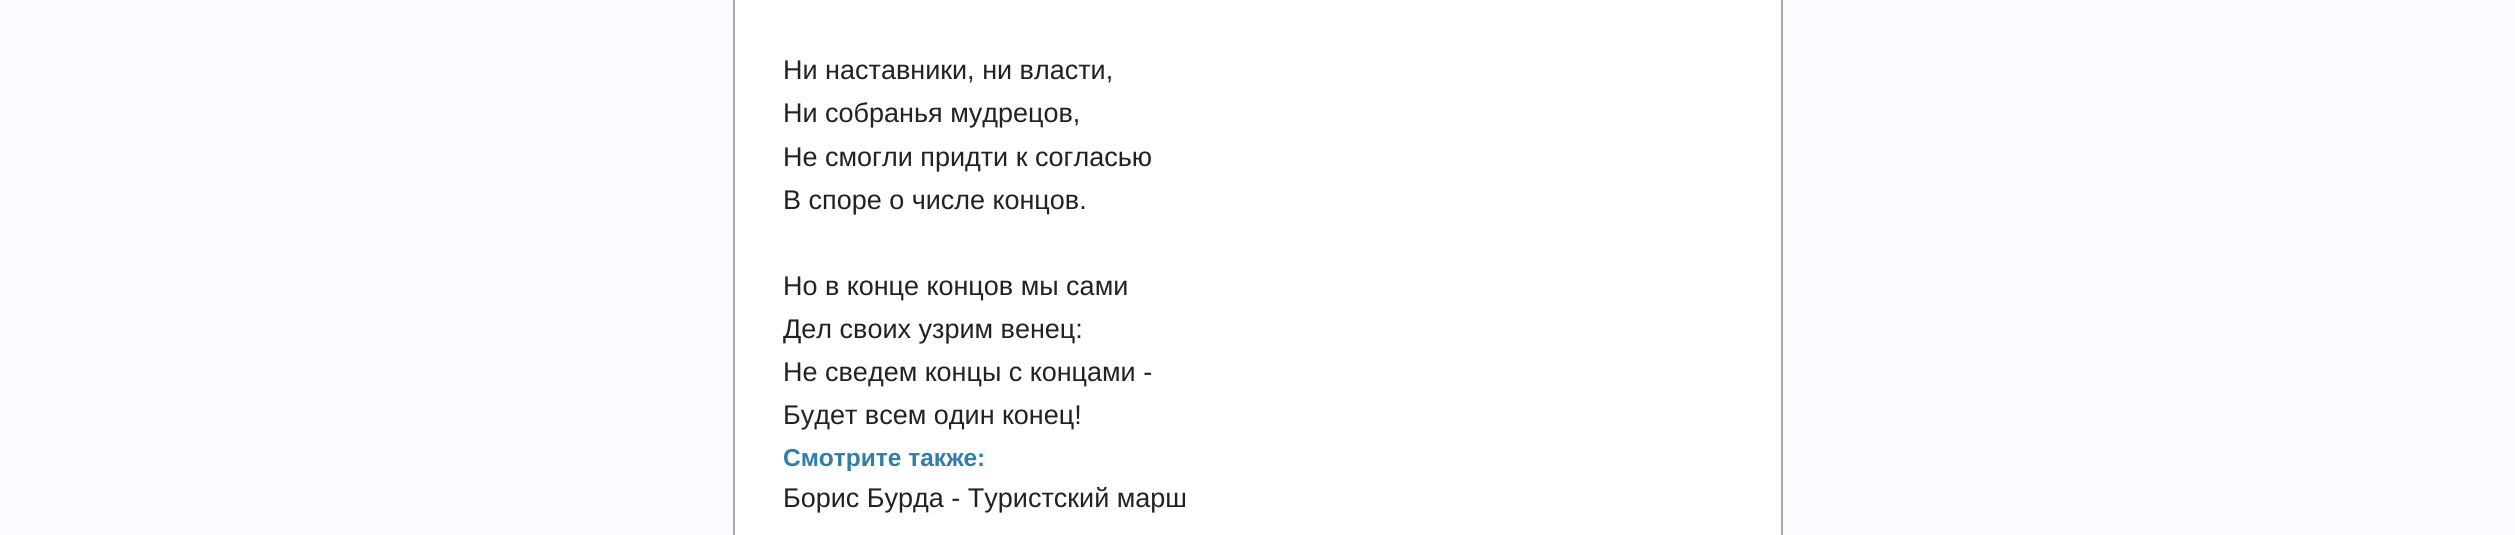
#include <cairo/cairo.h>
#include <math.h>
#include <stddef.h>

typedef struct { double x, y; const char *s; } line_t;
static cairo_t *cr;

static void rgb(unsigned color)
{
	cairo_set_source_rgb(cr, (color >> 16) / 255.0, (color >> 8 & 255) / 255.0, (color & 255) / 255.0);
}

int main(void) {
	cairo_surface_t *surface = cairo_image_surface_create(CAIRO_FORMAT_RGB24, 2515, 535);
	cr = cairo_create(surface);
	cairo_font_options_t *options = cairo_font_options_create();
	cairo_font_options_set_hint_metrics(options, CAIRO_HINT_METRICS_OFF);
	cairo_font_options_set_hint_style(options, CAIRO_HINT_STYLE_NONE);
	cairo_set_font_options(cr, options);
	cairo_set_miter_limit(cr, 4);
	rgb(0xfafcff);
	cairo_paint(cr);
	rgb(0xffffff);
	cairo_rectangle(cr, 734, -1, 1048, 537);
	cairo_fill_preserve(cr);
	rgb(0xaaaaaa);
	cairo_stroke(cr);
	cairo_select_font_face(cr, "Liberation Sans", CAIRO_FONT_SLANT_NORMAL, CAIRO_FONT_WEIGHT_NORMAL);
	cairo_set_font_size(cr, 27);
	rgb(0x222222);
	{
		static const line_t items[] = {
			{783, 79, "Ни наставники, ни власти,"},
			{783, 122, "Ни собранья мудрецов,"},
			{783, 166, "Не смогли придти к согласью"},
			{783, 209, "В споре о числе концов."},
			{783, 295, "Но в конце концов мы сами"},
			{783, 338, "Дел своих узрим венец:"},
			{783, 381, "Не сведем концы с концами -"},
			{783, 424, "Будет всем один конец!"},
		};
		for (size_t i = 0; i < sizeof items / sizeof *items; i++) {
			cairo_move_to(cr, items[i].x, items[i].y);
			cairo_show_text(cr, items[i].s);
		}
	}
	cairo_select_font_face(cr, "Liberation Sans", CAIRO_FONT_SLANT_NORMAL, CAIRO_FONT_WEIGHT_BOLD);
	cairo_set_font_size(cr, 24.5);
	rgb(0x317eac);
	cairo_move_to(cr, 783, 466);
	cairo_show_text(cr, "Смотрите также:");
	cairo_select_font_face(cr, "Liberation Sans", CAIRO_FONT_SLANT_NORMAL, CAIRO_FONT_WEIGHT_NORMAL);
	cairo_set_font_size(cr, 27);
	rgb(0x222222);
	cairo_move_to(cr, 783, 507);
	cairo_show_text(cr, "Борис Бурда - Туристский марш");
	cairo_surface_write_to_png(surface, "page.png");
	cairo_font_options_destroy(options);
	cairo_destroy(cr);
	cairo_surface_destroy(surface);
	return 0;
}
